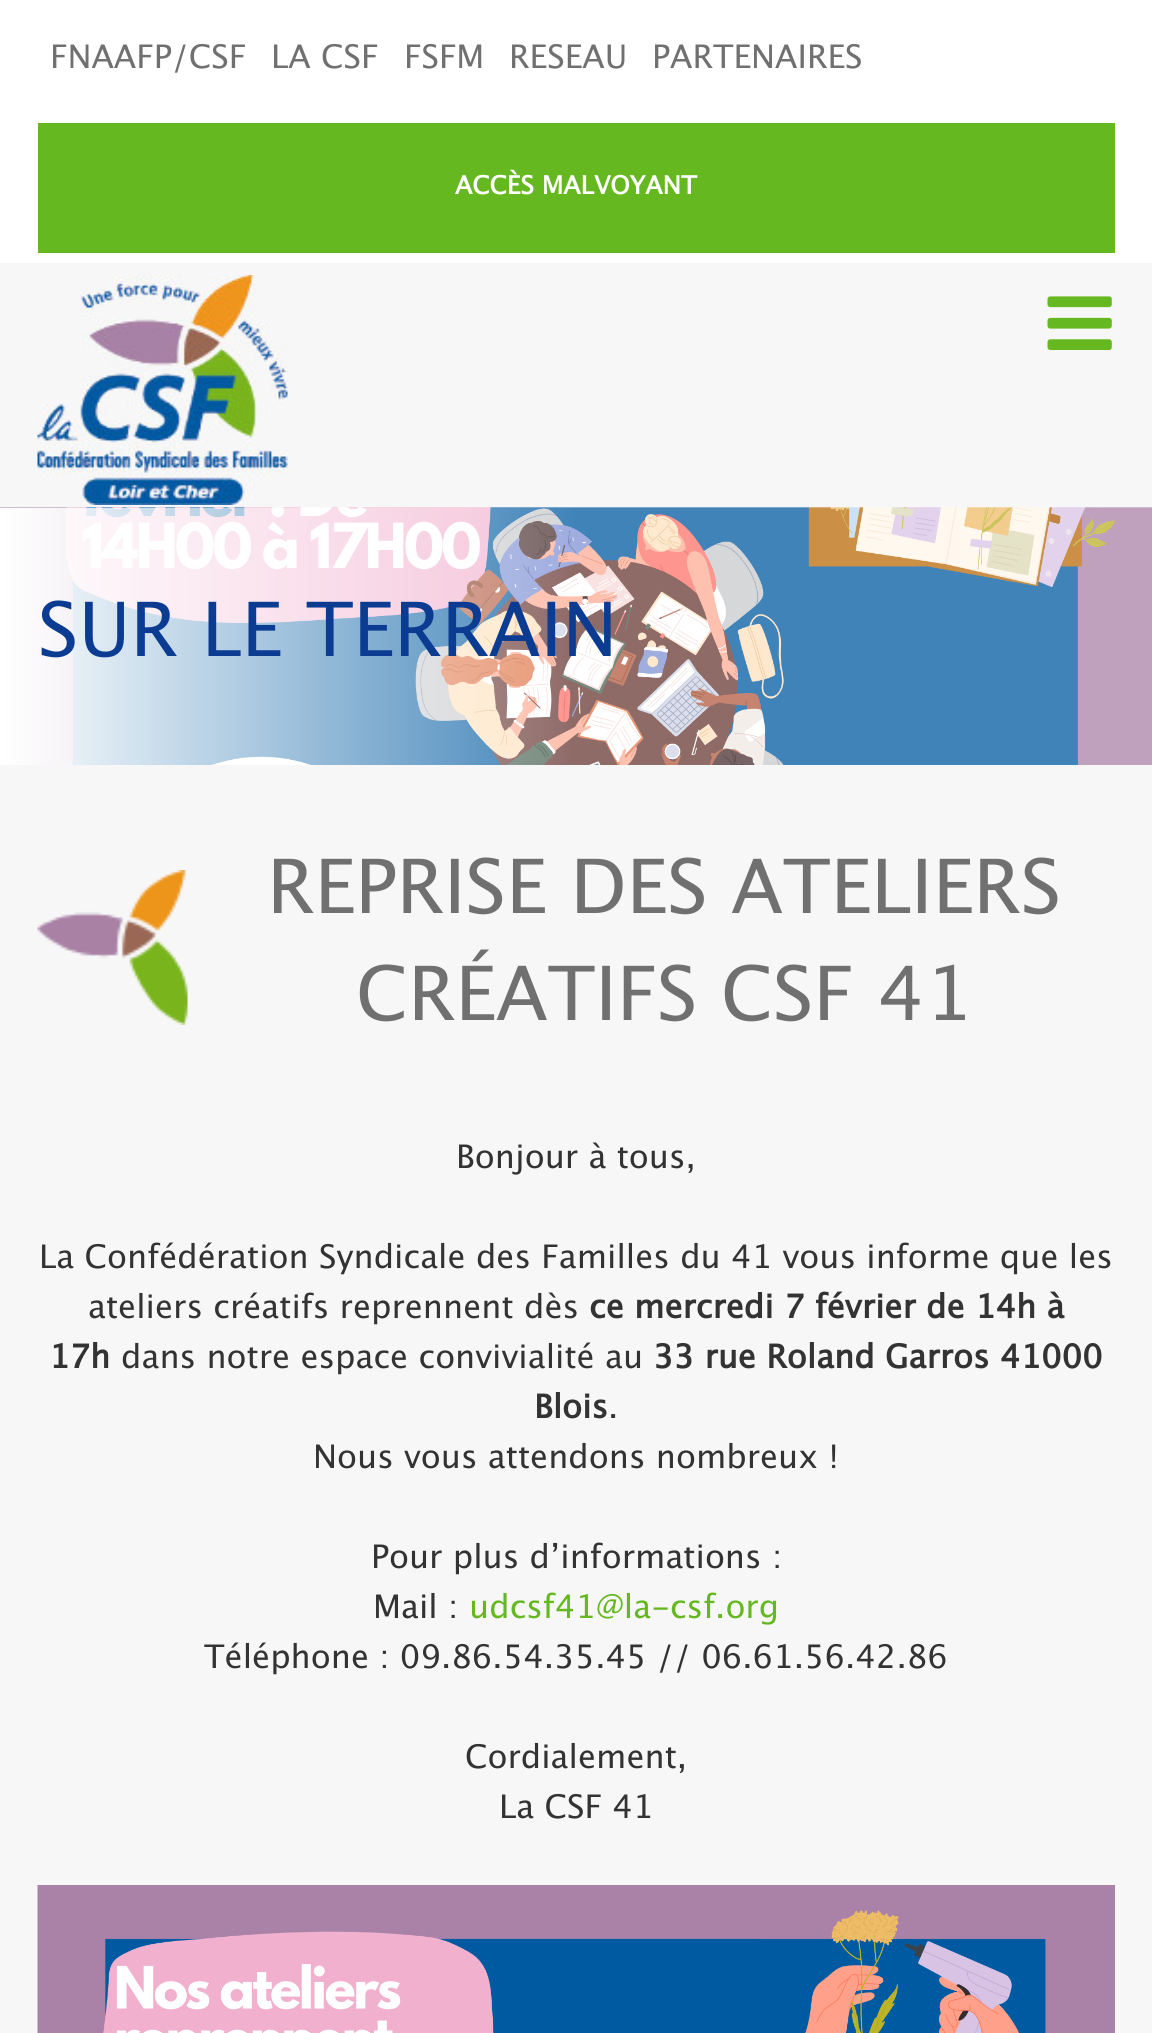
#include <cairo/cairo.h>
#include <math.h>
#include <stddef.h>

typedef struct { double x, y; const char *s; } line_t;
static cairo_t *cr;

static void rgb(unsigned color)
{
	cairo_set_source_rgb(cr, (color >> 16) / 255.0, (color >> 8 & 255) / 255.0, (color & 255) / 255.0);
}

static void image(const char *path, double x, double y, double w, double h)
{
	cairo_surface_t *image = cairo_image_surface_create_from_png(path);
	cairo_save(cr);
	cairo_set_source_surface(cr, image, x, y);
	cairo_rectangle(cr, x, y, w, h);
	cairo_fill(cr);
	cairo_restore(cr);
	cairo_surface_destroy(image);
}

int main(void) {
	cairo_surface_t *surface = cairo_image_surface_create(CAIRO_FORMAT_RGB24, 1152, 2033);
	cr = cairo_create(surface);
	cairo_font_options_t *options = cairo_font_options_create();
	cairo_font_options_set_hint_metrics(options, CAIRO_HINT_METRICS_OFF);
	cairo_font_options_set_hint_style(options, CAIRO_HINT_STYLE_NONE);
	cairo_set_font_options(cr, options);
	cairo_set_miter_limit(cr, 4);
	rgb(0xf7f7f7);
	cairo_paint(cr);
	rgb(0xffffff);
	cairo_rectangle(cr, 0, 0, 1152, 263);
	cairo_fill(cr);
	rgb(0x66b821);
	cairo_rectangle(cr, 38, 123, 1077, 130);
	cairo_fill(cr);
	image("img/1.png", 37, 275, 251, 230);
	image("img/2.png", 1047, 296, 65, 54);
	image("img/3.png", 0, 507, 1152, 258);
	image("img/4.png", 37, 870, 151, 155);
	image("img/5.png", 37, 1885, 1078, 148);
	cairo_select_font_face(cr, "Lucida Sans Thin", CAIRO_FONT_SLANT_NORMAL, CAIRO_FONT_WEIGHT_NORMAL);
	cairo_set_font_size(cr, 32.5);
	rgb(0x707070);
	{
		static const line_t items[] = {
			{50, 68, "FNAAFP/CSF"},
			{271, 68, "LA CSF"},
			{404, 68, "FSFM"},
			{509, 68, "RESEAU"},
			{652, 68, "PARTENAIRES"},
		};
		for (size_t i = 0; i < sizeof items / sizeof *items; i++) {
			cairo_move_to(cr, items[i].x, items[i].y);
			cairo_show_text(cr, items[i].s);
		}
	}
	cairo_select_font_face(cr, "Lucida Sans", CAIRO_FONT_SLANT_NORMAL, CAIRO_FONT_WEIGHT_BOLD);
	cairo_set_font_size(cr, 25);
	rgb(0xffffff);
	cairo_move_to(cr, 455, 194);
	cairo_show_text(cr, "ACCÈS MALVOYANT");
	cairo_select_font_face(cr, "Lucida Sans Thin", CAIRO_FONT_SLANT_NORMAL, CAIRO_FONT_WEIGHT_NORMAL);
	cairo_set_font_size(cr, 75);
	rgb(0x0b3c92);
	cairo_move_to(cr, 38, 656);
	cairo_show_text(cr, "SUR LE TERRAIN");
	rgb(0x707070);
	cairo_move_to(cr, 267, 913);
	cairo_show_text(cr, "REPRISE DES ATELIERS");
	cairo_move_to(cr, 356, 1020);
	cairo_show_text(cr, "CRÉATIFS CSF 41");
	cairo_set_font_size(cr, 32.5);
	rgb(0x333333);
	{
		static const line_t items[] = {
			{456, 1168, "Bonjour à tous,"},
			{39, 1268, "La Confédération Syndicale des Familles du 41 vous informe que les"},
			{88, 1318, "ateliers créatifs reprennent dès"},
		};
		for (size_t i = 0; i < sizeof items / sizeof *items; i++) {
			cairo_move_to(cr, items[i].x, items[i].y);
			cairo_show_text(cr, items[i].s);
		}
	}
	cairo_select_font_face(cr, "Lucida Sans", CAIRO_FONT_SLANT_NORMAL, CAIRO_FONT_WEIGHT_BOLD);
	cairo_move_to(cr, 589, 1318);
	cairo_show_text(cr, "ce mercredi 7 février de 14h à");
	cairo_move_to(cr, 49, 1368);
	cairo_show_text(cr, "17h");
	cairo_select_font_face(cr, "Lucida Sans Thin", CAIRO_FONT_SLANT_NORMAL, CAIRO_FONT_WEIGHT_NORMAL);
	cairo_move_to(cr, 121, 1368);
	cairo_show_text(cr, "dans notre espace convivialité au");
	cairo_select_font_face(cr, "Lucida Sans", CAIRO_FONT_SLANT_NORMAL, CAIRO_FONT_WEIGHT_BOLD);
	cairo_move_to(cr, 653, 1368);
	cairo_show_text(cr, "33 rue Roland Garros 41000");
	cairo_move_to(cr, 534, 1418);
	cairo_show_text(cr, "Blois");
	cairo_select_font_face(cr, "Lucida Sans Thin", CAIRO_FONT_SLANT_NORMAL, CAIRO_FONT_WEIGHT_NORMAL);
	{
		static const line_t items[] = {
			{608, 1418, "."},
			{313, 1468, "Nous vous attendons nombreux !"},
			{371, 1568, "Pour plus d’informations :"},
			{373, 1618, "Mail :"},
		};
		for (size_t i = 0; i < sizeof items / sizeof *items; i++) {
			cairo_move_to(cr, items[i].x, items[i].y);
			cairo_show_text(cr, items[i].s);
		}
	}
	rgb(0x66b821);
	cairo_move_to(cr, 469, 1618);
	cairo_show_text(cr, "udcsf41@la-csf.org");
	rgb(0x333333);
	{
		static const line_t items[] = {
			{204, 1668, "Téléphone : 09.86.54.35.45 // 06.61.56.42.86"},
			{465, 1768, "Cordialement,"},
			{499, 1818, "La CSF 41"},
		};
		for (size_t i = 0; i < sizeof items / sizeof *items; i++) {
			cairo_move_to(cr, items[i].x, items[i].y);
			cairo_show_text(cr, items[i].s);
		}
	}
	cairo_surface_write_to_png(surface, "page.png");
	cairo_font_options_destroy(options);
	cairo_destroy(cr);
	cairo_surface_destroy(surface);
	return 0;
}
